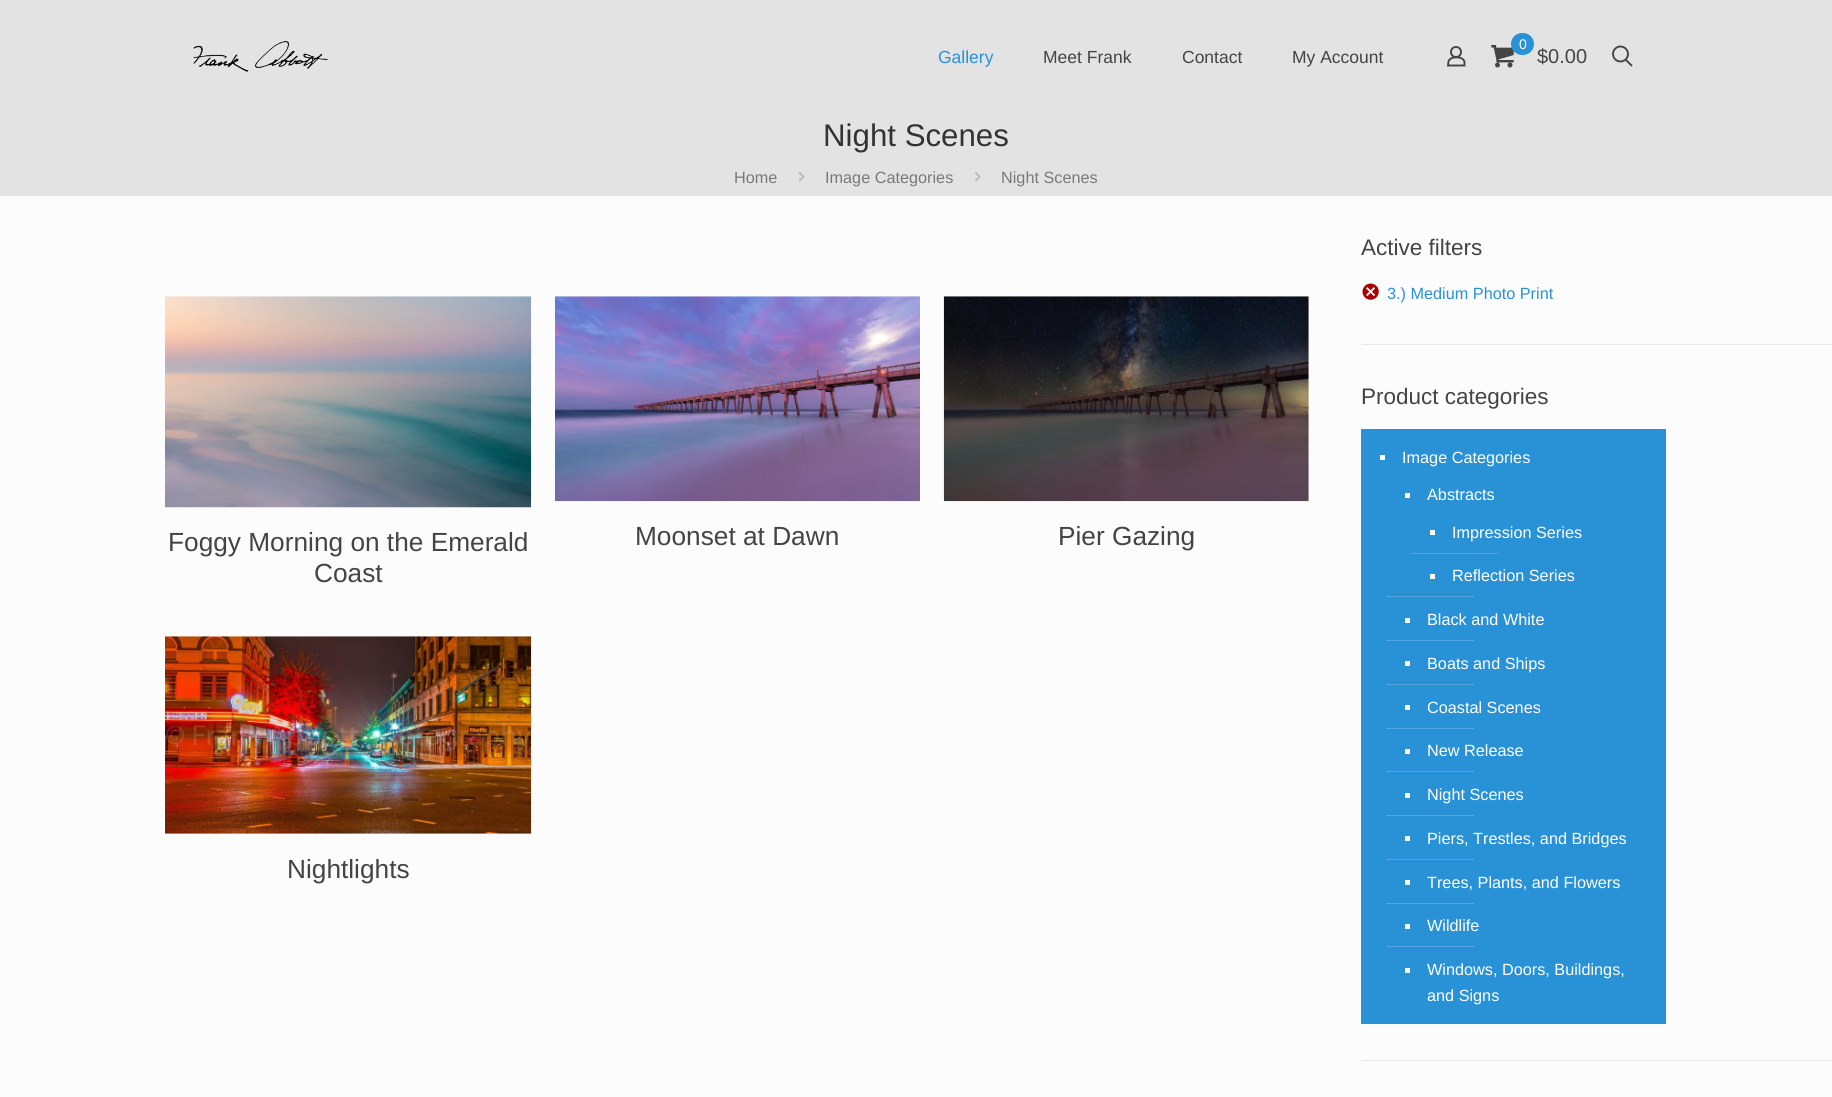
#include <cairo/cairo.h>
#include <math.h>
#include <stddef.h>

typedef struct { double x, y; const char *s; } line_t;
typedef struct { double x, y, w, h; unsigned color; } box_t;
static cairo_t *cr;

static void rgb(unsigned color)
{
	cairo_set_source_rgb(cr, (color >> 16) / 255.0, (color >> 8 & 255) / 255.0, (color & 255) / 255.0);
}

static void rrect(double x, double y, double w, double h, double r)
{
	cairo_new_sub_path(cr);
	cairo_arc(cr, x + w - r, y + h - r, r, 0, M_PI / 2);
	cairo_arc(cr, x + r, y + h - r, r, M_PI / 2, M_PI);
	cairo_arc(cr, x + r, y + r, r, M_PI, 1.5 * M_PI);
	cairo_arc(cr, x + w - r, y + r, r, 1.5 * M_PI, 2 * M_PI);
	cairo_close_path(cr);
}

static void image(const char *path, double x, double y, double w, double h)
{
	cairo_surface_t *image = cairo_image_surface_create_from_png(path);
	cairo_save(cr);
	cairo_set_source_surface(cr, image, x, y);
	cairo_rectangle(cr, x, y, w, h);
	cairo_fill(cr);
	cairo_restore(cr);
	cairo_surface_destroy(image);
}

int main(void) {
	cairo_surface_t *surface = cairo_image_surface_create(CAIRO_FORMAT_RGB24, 1832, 1097);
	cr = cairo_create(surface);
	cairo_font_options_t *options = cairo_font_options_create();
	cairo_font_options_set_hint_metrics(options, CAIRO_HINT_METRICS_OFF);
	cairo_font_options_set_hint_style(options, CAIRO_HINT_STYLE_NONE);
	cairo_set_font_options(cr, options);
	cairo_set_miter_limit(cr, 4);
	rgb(0xfcfcfc);
	cairo_paint(cr);
	rgb(0xe3e3e3);
	cairo_rectangle(cr, 0, 0, 1832, 196);
	cairo_fill(cr);
	image("img/1.png", 193, 41, 135, 31);
	cairo_arc(cr, 1456, 52, 5, 0, 2 * M_PI);
	rgb(0x444444);
	cairo_set_line_width(cr, 1.9);
	cairo_stroke(cr);
	cairo_new_path(cr);
	cairo_move_to(cr, 1464.5, 62.5);
	cairo_line_to(cr, 1464.5, 65.5);
	cairo_line_to(cr, 1448, 65.5);
	cairo_line_to(cr, 1448.5, 61.5);
	cairo_curve_to(cr, 1450, 55.5, 1464.5, 56, 1464.5, 62.5);
	cairo_close_path(cr);
	cairo_stroke(cr);
	image("img/2.png", 1491, 45, 23, 23);
	rgb(0x2991d6);
	rrect(1511, 33, 23, 22, 11);
	cairo_fill(cr);
	cairo_arc(cr, 1620.5, 54, 7.5, 0, 2 * M_PI);
	rgb(0x444444);
	cairo_stroke(cr);
	cairo_new_path(cr);
	cairo_move_to(cr, 1625.5, 59.5);
	cairo_line_to(cr, 1632, 66);
	cairo_stroke(cr);
	image("img/3.png", 798, 172, 7, 10);
	image("img/4.png", 975, 172, 6, 10);
	image("img/5.png", 165, 296, 367, 212);
	image("img/6.png", 555, 296, 365, 206);
	image("img/7.png", 943, 296, 366, 206);
	image("img/8.png", 165, 636, 367, 198);
	image("img/9.png", 1362, 283, 17, 17);
	{
		static const box_t items[] = {
			{1361, 344, 471, 1, 0xe8e8e8},
			{1361, 429, 305, 595, 0x2991d6},
			{1380, 455, 5, 5, 0xffffff},
			{1405, 493, 5, 5, 0xffffff},
			{1430, 530, 5, 5, 0xffffff},
			{1411, 553, 88, 1, 0x54a7de},
			{1430, 574, 5, 5, 0xffffff},
			{1386, 596, 88, 1, 0x54a7de},
			{1405, 618, 5, 5, 0xffffff},
			{1386, 640, 88, 1, 0x54a7de},
			{1405, 661, 5, 5, 0xffffff},
			{1386, 684, 88, 1, 0x54a7de},
			{1405, 705, 5, 5, 0xffffff},
			{1386, 728, 88, 1, 0x54a7de},
			{1405, 749, 5, 5, 0xffffff},
			{1386, 771, 88, 1, 0x54a7de},
			{1405, 793, 5, 5, 0xffffff},
			{1386, 815, 88, 1, 0x54a7de},
			{1405, 836, 5, 5, 0xffffff},
			{1386, 859, 88, 1, 0x54a7de},
			{1405, 880, 5, 5, 0xffffff},
			{1386, 903, 88, 1, 0x54a7de},
			{1405, 924, 5, 5, 0xffffff},
			{1386, 946, 88, 1, 0x54a7de},
			{1405, 968, 5, 5, 0xffffff},
			{1361, 1060, 471, 1, 0xe8e8e8},
		};
		for (size_t i = 0; i < sizeof items / sizeof *items; i++) {
			rgb(items[i].color);
			cairo_rectangle(cr, items[i].x, items[i].y, items[i].w, items[i].h);
			cairo_fill(cr);
		}
	}
	cairo_select_font_face(cr, "Liberation Sans", CAIRO_FONT_SLANT_NORMAL, CAIRO_FONT_WEIGHT_NORMAL);
	cairo_set_font_size(cr, 17.5);
	rgb(0x2991d6);
	cairo_move_to(cr, 938, 63);
	cairo_show_text(cr, "Gallery");
	rgb(0x444444);
	{
		static const line_t items[] = {
			{1043, 63, "Meet Frank"},
			{1182, 63, "Contact"},
			{1292, 63, "My Account"},
		};
		for (size_t i = 0; i < sizeof items / sizeof *items; i++) {
			cairo_move_to(cr, items[i].x, items[i].y);
			cairo_show_text(cr, items[i].s);
		}
	}
	cairo_set_font_size(cr, 14);
	rgb(0xffffff);
	cairo_move_to(cr, 1519, 49);
	cairo_show_text(cr, "0");
	cairo_set_font_size(cr, 20);
	rgb(0x444444);
	cairo_move_to(cr, 1537, 63);
	cairo_show_text(cr, "$0.00");
	cairo_set_font_size(cr, 31.25);
	rgb(0x333333);
	cairo_move_to(cr, 823, 146);
	cairo_show_text(cr, "Night Scenes");
	cairo_set_font_size(cr, 16.25);
	rgb(0x797979);
	{
		static const line_t items[] = {
			{734, 183, "Home"},
			{825, 183, "Image Categories"},
			{1001, 183, "Night Scenes"},
		};
		for (size_t i = 0; i < sizeof items / sizeof *items; i++) {
			cairo_move_to(cr, items[i].x, items[i].y);
			cairo_show_text(cr, items[i].s);
		}
	}
	cairo_set_font_size(cr, 26.25);
	rgb(0x444444);
	{
		static const line_t items[] = {
			{168, 551, "Foggy Morning on the Emerald"},
			{314, 582, "Coast"},
			{635, 545, "Moonset at Dawn"},
			{1058, 545, "Pier Gazing"},
			{287, 878, "Nightlights"},
		};
		for (size_t i = 0; i < sizeof items / sizeof *items; i++) {
			cairo_move_to(cr, items[i].x, items[i].y);
			cairo_show_text(cr, items[i].s);
		}
	}
	cairo_set_font_size(cr, 22.5);
	cairo_move_to(cr, 1361, 255);
	cairo_show_text(cr, "Active filters");
	cairo_set_font_size(cr, 16.25);
	rgb(0x2991d6);
	cairo_move_to(cr, 1387, 299);
	cairo_show_text(cr, "3.) Medium Photo Print");
	cairo_set_font_size(cr, 22.5);
	rgb(0x444444);
	cairo_move_to(cr, 1361, 404);
	cairo_show_text(cr, "Product categories");
	cairo_set_font_size(cr, 16.25);
	rgb(0xffffff);
	{
		static const line_t items[] = {
			{1402, 463, "Image Categories"},
			{1427, 500, "Abstracts"},
			{1452, 538, "Impression Series"},
			{1452, 581, "Reflection Series"},
			{1427, 625, "Black and White"},
			{1427, 669, "Boats and Ships"},
			{1427, 713, "Coastal Scenes"},
			{1427, 756, "New Release"},
			{1427, 800, "Night Scenes"},
			{1427, 844, "Piers, Trestles, and Bridges"},
			{1427, 888, "Trees, Plants, and Flowers"},
			{1427, 931, "Wildlife"},
			{1427, 975, "Windows, Doors, Buildings,"},
			{1427, 1001, "and Signs"},
		};
		for (size_t i = 0; i < sizeof items / sizeof *items; i++) {
			cairo_move_to(cr, items[i].x, items[i].y);
			cairo_show_text(cr, items[i].s);
		}
	}
	cairo_surface_write_to_png(surface, "page.png");
	cairo_font_options_destroy(options);
	cairo_destroy(cr);
	cairo_surface_destroy(surface);
	return 0;
}
